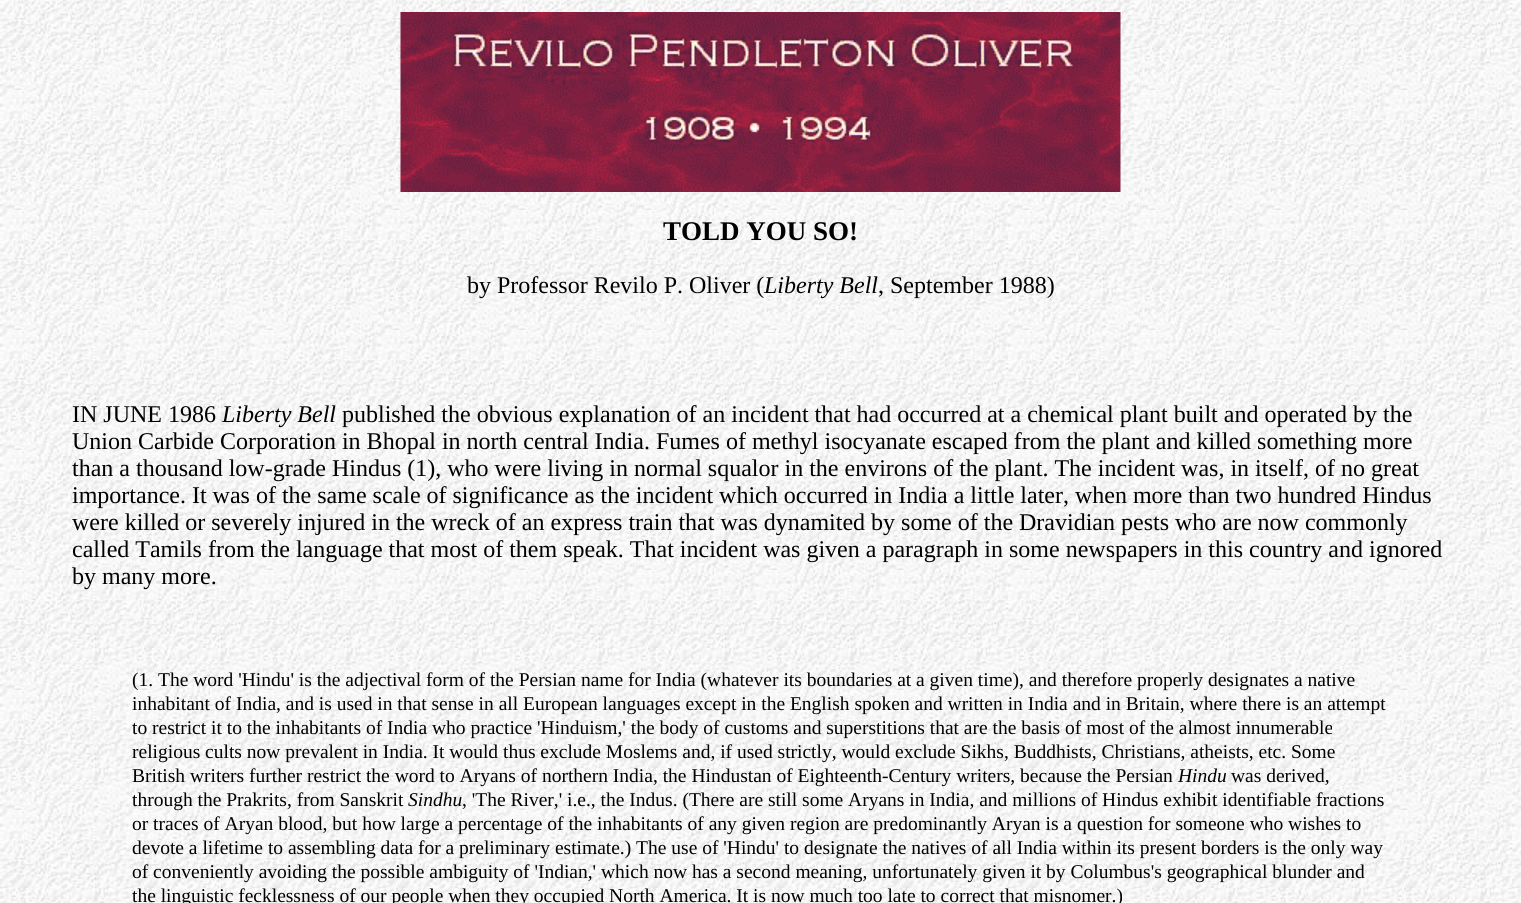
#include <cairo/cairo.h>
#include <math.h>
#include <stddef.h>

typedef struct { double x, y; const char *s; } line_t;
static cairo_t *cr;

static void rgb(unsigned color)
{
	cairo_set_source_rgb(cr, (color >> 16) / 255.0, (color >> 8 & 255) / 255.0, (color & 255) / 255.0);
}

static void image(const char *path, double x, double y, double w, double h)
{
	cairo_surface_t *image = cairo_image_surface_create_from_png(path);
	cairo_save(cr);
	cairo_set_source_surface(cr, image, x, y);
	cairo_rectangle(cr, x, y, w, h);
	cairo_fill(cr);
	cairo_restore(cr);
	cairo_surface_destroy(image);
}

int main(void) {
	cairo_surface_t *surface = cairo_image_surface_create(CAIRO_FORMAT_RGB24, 1521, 903);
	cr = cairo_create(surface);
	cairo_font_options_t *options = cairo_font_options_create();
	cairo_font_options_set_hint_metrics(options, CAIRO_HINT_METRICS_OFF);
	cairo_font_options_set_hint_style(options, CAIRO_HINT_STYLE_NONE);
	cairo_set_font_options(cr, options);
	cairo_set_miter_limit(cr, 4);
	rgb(0xffffff);
	cairo_paint(cr);
	image("img/1.png", 0, 0, 1521, 903);
	image("img/2.png", 400, 12, 721, 180);
	cairo_select_font_face(cr, "Liberation Serif", CAIRO_FONT_SLANT_NORMAL, CAIRO_FONT_WEIGHT_BOLD);
	cairo_set_font_size(cr, 27);
	rgb(0x000000);
	cairo_move_to(cr, 663, 240);
	cairo_show_text(cr, "TOLD YOU SO!");
	cairo_select_font_face(cr, "Liberation Serif", CAIRO_FONT_SLANT_NORMAL, CAIRO_FONT_WEIGHT_NORMAL);
	cairo_set_font_size(cr, 24);
	cairo_move_to(cr, 467, 293);
	cairo_show_text(cr, "by Professor Revilo P. Oliver (");
	cairo_select_font_face(cr, "Liberation Serif", CAIRO_FONT_SLANT_ITALIC, CAIRO_FONT_WEIGHT_NORMAL);
	cairo_move_to(cr, 764, 293);
	cairo_show_text(cr, "Liberty Bell");
	cairo_select_font_face(cr, "Liberation Serif", CAIRO_FONT_SLANT_NORMAL, CAIRO_FONT_WEIGHT_NORMAL);
	cairo_move_to(cr, 878, 293);
	cairo_show_text(cr, ", September 1988)");
	cairo_move_to(cr, 72, 422);
	cairo_show_text(cr, "IN JUNE 1986");
	cairo_select_font_face(cr, "Liberation Serif", CAIRO_FONT_SLANT_ITALIC, CAIRO_FONT_WEIGHT_NORMAL);
	cairo_move_to(cr, 222, 422);
	cairo_show_text(cr, "Liberty Bell");
	cairo_select_font_face(cr, "Liberation Serif", CAIRO_FONT_SLANT_NORMAL, CAIRO_FONT_WEIGHT_NORMAL);
	{
		static const line_t items[] = {
			{342, 422, "published the obvious explanation of an incident that had occurred at a chemical plant built and operated by the"},
			{72, 449, "Union Carbide Corporation in Bhopal in north central India. Fumes of methyl isocyanate escaped from the plant and killed something more"},
			{72, 476, "than a thousand low-grade Hindus (1), who were living in normal squalor in the environs of the plant. The incident was, in itself, of no great"},
			{72, 503, "importance. It was of the same scale of significance as the incident which occurred in India a little later, when more than two hundred Hindus"},
			{72, 530, "were killed or severely injured in the wreck of an express train that was dynamited by some of the Dravidian pests who are now commonly"},
			{72, 557, "called Tamils from the language that most of them speak. That incident was given a paragraph in some newspapers in this country and ignored"},
			{72, 584, "by many more."},
		};
		for (size_t i = 0; i < sizeof items / sizeof *items; i++) {
			cairo_move_to(cr, items[i].x, items[i].y);
			cairo_show_text(cr, items[i].s);
		}
	}
	cairo_set_font_size(cr, 19.5);
	{
		static const line_t items[] = {
			{132, 686, "(1. The word 'Hindu' is the adjectival form of the Persian name for India (whatever its boundaries at a given time), and therefore properly designates a native"},
			{132, 710, "inhabitant of India, and is used in that sense in all European languages except in the English spoken and written in India and in Britain, where there is an attempt"},
			{132, 734, "to restrict it to the inhabitants of India who practice 'Hinduism,' the body of customs and superstitions that are the basis of most of the almost innumerable"},
			{132, 758, "religious cults now prevalent in India. It would thus exclude Moslems and, if used strictly, would exclude Sikhs, Buddhists, Christians, atheists, etc. Some"},
			{132, 782, "British writers further restrict the word to Aryans of northern India, the Hindustan of Eighteenth-Century writers, because the Persian"},
		};
		for (size_t i = 0; i < sizeof items / sizeof *items; i++) {
			cairo_move_to(cr, items[i].x, items[i].y);
			cairo_show_text(cr, items[i].s);
		}
	}
	cairo_select_font_face(cr, "Liberation Serif", CAIRO_FONT_SLANT_ITALIC, CAIRO_FONT_WEIGHT_NORMAL);
	cairo_move_to(cr, 1178, 782);
	cairo_show_text(cr, "Hindu");
	cairo_select_font_face(cr, "Liberation Serif", CAIRO_FONT_SLANT_NORMAL, CAIRO_FONT_WEIGHT_NORMAL);
	cairo_move_to(cr, 1231, 782);
	cairo_show_text(cr, "was derived,");
	cairo_move_to(cr, 132, 806);
	cairo_show_text(cr, "through the Prakrits, from Sanskrit");
	cairo_select_font_face(cr, "Liberation Serif", CAIRO_FONT_SLANT_ITALIC, CAIRO_FONT_WEIGHT_NORMAL);
	cairo_move_to(cr, 408, 806);
	cairo_show_text(cr, "Sindhu");
	cairo_select_font_face(cr, "Liberation Serif", CAIRO_FONT_SLANT_NORMAL, CAIRO_FONT_WEIGHT_NORMAL);
	{
		static const line_t items[] = {
			{462, 806, ", 'The River,' i.e., the Indus. (There are still some Aryans in India, and millions of Hindus exhibit identifiable fractions"},
			{132, 830, "or traces of Aryan blood, but how large a percentage of the inhabitants of any given region are predominantly Aryan is a question for someone who wishes to"},
			{132, 854, "devote a lifetime to assembling data for a preliminary estimate.) The use of 'Hindu' to designate the natives of all India within its present borders is the only way"},
			{132, 878, "of conveniently avoiding the possible ambiguity of 'Indian,' which now has a second meaning, unfortunately given it by Columbus's geographical blunder and"},
			{132, 902, "the linguistic fecklessness of our people when they occupied North America. It is now much too late to correct that misnomer.)"},
		};
		for (size_t i = 0; i < sizeof items / sizeof *items; i++) {
			cairo_move_to(cr, items[i].x, items[i].y);
			cairo_show_text(cr, items[i].s);
		}
	}
	cairo_surface_write_to_png(surface, "page.png");
	cairo_font_options_destroy(options);
	cairo_destroy(cr);
	cairo_surface_destroy(surface);
	return 0;
}
